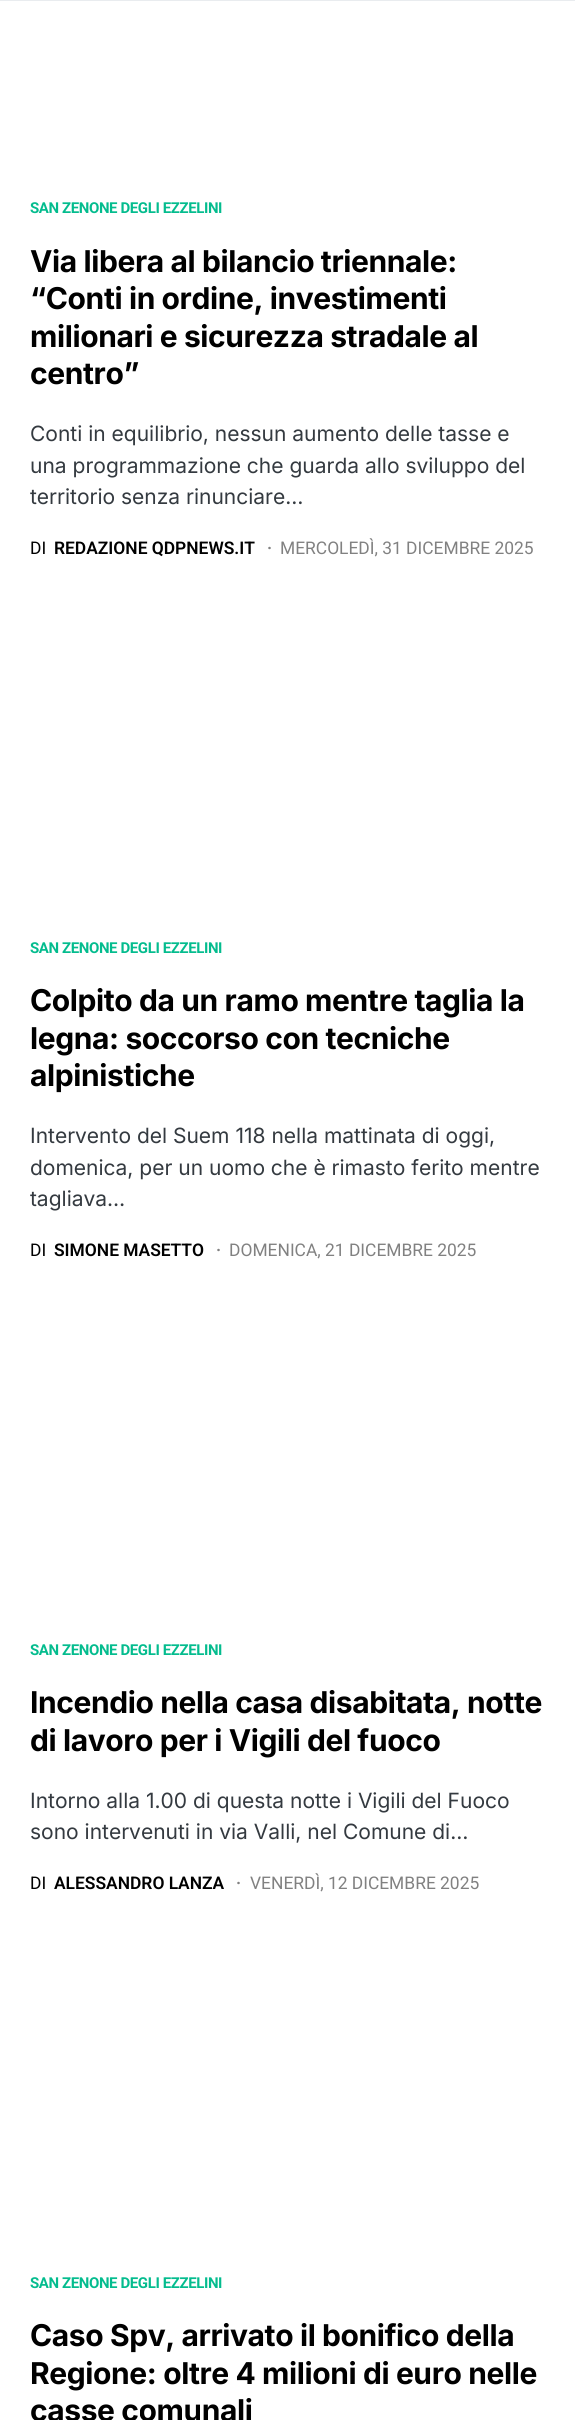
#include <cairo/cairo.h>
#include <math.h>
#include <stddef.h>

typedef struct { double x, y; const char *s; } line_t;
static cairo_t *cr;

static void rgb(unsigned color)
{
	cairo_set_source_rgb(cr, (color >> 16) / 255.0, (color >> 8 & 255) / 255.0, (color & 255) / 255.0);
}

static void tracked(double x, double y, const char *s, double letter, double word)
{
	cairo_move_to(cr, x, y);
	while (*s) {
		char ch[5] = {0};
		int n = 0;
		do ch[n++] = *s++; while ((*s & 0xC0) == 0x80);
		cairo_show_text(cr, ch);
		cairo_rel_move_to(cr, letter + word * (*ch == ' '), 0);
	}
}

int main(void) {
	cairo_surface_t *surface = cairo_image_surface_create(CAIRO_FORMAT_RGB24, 575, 2420);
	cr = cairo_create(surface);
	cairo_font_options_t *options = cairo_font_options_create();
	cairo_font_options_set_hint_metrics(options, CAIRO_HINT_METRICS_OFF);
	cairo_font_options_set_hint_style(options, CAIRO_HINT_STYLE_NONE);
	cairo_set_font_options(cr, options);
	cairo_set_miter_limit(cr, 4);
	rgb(0xffffff);
	cairo_paint(cr);
	rgb(0xe9ecef);
	cairo_rectangle(cr, 0, 0, 575, 1);
	cairo_fill(cr);
	cairo_select_font_face(cr, "Roboto", CAIRO_FONT_SLANT_NORMAL, CAIRO_FONT_WEIGHT_BOLD);
	cairo_set_font_size(cr, 15);
	rgb(0x04bc8e);
	tracked(30, 213, "SAN ZENONE DEGLI EZZELINI", -0.4, 0);
	cairo_select_font_face(cr, "Inter", CAIRO_FONT_SLANT_NORMAL, CAIRO_FONT_WEIGHT_BOLD);
	cairo_set_font_size(cr, 30);
	rgb(0x000000);
	{
		static const line_t items[] = {
			{30, 272, "Via libera al bilancio triennale:"},
			{30, 309, "“Conti in ordine, investimenti"},
			{30, 347, "milionari e sicurezza stradale al"},
			{30, 384, "centro”"},
		};
		for (size_t i = 0; i < sizeof items / sizeof *items; i++) {
			tracked(items[i].x, items[i].y, items[i].s, -0.4, 0);
		}
	}
	cairo_select_font_face(cr, "Inter", CAIRO_FONT_SLANT_NORMAL, CAIRO_FONT_WEIGHT_NORMAL);
	cairo_set_font_size(cr, 21);
	rgb(0x343a40);
	{
		static const line_t items[] = {
			{30, 441, "Conti in equilibrio, nessun aumento delle tasse e"},
			{30, 473, "una programmazione che guarda allo sviluppo del"},
			{30, 504, "territorio senza rinunciare…"},
		};
		for (size_t i = 0; i < sizeof items / sizeof *items; i++) {
			cairo_move_to(cr, items[i].x, items[i].y);
			cairo_show_text(cr, items[i].s);
		}
	}
	cairo_select_font_face(cr, "Roboto", CAIRO_FONT_SLANT_NORMAL, CAIRO_FONT_WEIGHT_NORMAL);
	cairo_set_font_size(cr, 17.4);
	rgb(0x000000);
	cairo_move_to(cr, 30, 554);
	cairo_show_text(cr, "DI");
	cairo_select_font_face(cr, "Roboto SemiBold", CAIRO_FONT_SLANT_NORMAL, CAIRO_FONT_WEIGHT_NORMAL);
	cairo_move_to(cr, 54, 554);
	cairo_show_text(cr, "REDAZIONE QDPNEWS.IT");
	rgb(0x818181);
	cairo_move_to(cr, 267, 554);
	cairo_show_text(cr, "·");
	cairo_select_font_face(cr, "Roboto", CAIRO_FONT_SLANT_NORMAL, CAIRO_FONT_WEIGHT_NORMAL);
	cairo_move_to(cr, 280, 554);
	cairo_show_text(cr, "MERCOLEDÌ, 31 DICEMBRE 2025");
	cairo_select_font_face(cr, "Roboto", CAIRO_FONT_SLANT_NORMAL, CAIRO_FONT_WEIGHT_BOLD);
	cairo_set_font_size(cr, 15);
	rgb(0x04bc8e);
	tracked(30, 953, "SAN ZENONE DEGLI EZZELINI", -0.4, 0);
	cairo_select_font_face(cr, "Inter", CAIRO_FONT_SLANT_NORMAL, CAIRO_FONT_WEIGHT_BOLD);
	cairo_set_font_size(cr, 30);
	rgb(0x000000);
	{
		static const line_t items[] = {
			{30, 1011, "Colpito da un ramo mentre taglia la"},
			{30, 1049, "legna: soccorso con tecniche"},
			{30, 1086, "alpinistiche"},
		};
		for (size_t i = 0; i < sizeof items / sizeof *items; i++) {
			tracked(items[i].x, items[i].y, items[i].s, -0.4, 0);
		}
	}
	cairo_select_font_face(cr, "Inter", CAIRO_FONT_SLANT_NORMAL, CAIRO_FONT_WEIGHT_NORMAL);
	cairo_set_font_size(cr, 21);
	rgb(0x343a40);
	{
		static const line_t items[] = {
			{30, 1143, "Intervento del Suem 118 nella mattinata di oggi,"},
			{30, 1175, "domenica, per un uomo che è rimasto ferito mentre"},
			{30, 1206, "tagliava…"},
		};
		for (size_t i = 0; i < sizeof items / sizeof *items; i++) {
			cairo_move_to(cr, items[i].x, items[i].y);
			cairo_show_text(cr, items[i].s);
		}
	}
	cairo_select_font_face(cr, "Roboto", CAIRO_FONT_SLANT_NORMAL, CAIRO_FONT_WEIGHT_NORMAL);
	cairo_set_font_size(cr, 17.4);
	rgb(0x000000);
	cairo_move_to(cr, 30, 1256);
	cairo_show_text(cr, "DI");
	cairo_select_font_face(cr, "Roboto SemiBold", CAIRO_FONT_SLANT_NORMAL, CAIRO_FONT_WEIGHT_NORMAL);
	cairo_move_to(cr, 54, 1256);
	cairo_show_text(cr, "SIMONE MASETTO");
	rgb(0x818181);
	cairo_move_to(cr, 216, 1256);
	cairo_show_text(cr, "·");
	cairo_select_font_face(cr, "Roboto", CAIRO_FONT_SLANT_NORMAL, CAIRO_FONT_WEIGHT_NORMAL);
	cairo_move_to(cr, 229, 1256);
	cairo_show_text(cr, "DOMENICA, 21 DICEMBRE 2025");
	cairo_select_font_face(cr, "Roboto", CAIRO_FONT_SLANT_NORMAL, CAIRO_FONT_WEIGHT_BOLD);
	cairo_set_font_size(cr, 15);
	rgb(0x04bc8e);
	tracked(30, 1655, "SAN ZENONE DEGLI EZZELINI", -0.4, 0);
	cairo_select_font_face(cr, "Inter", CAIRO_FONT_SLANT_NORMAL, CAIRO_FONT_WEIGHT_BOLD);
	cairo_set_font_size(cr, 30);
	rgb(0x000000);
	tracked(30, 1713, "Incendio nella casa disabitata, notte", -0.4, 0);
	tracked(30, 1751, "di lavoro per i Vigili del fuoco", -0.4, 0);
	cairo_select_font_face(cr, "Inter", CAIRO_FONT_SLANT_NORMAL, CAIRO_FONT_WEIGHT_NORMAL);
	cairo_set_font_size(cr, 21);
	rgb(0x343a40);
	cairo_move_to(cr, 30, 1808);
	cairo_show_text(cr, "Intorno alla 1.00 di questa notte i Vigili del Fuoco");
	cairo_move_to(cr, 30, 1839);
	cairo_show_text(cr, "sono intervenuti in via Valli, nel Comune di…");
	cairo_select_font_face(cr, "Roboto", CAIRO_FONT_SLANT_NORMAL, CAIRO_FONT_WEIGHT_NORMAL);
	cairo_set_font_size(cr, 17.4);
	rgb(0x000000);
	cairo_move_to(cr, 30, 1889);
	cairo_show_text(cr, "DI");
	cairo_select_font_face(cr, "Roboto SemiBold", CAIRO_FONT_SLANT_NORMAL, CAIRO_FONT_WEIGHT_NORMAL);
	cairo_move_to(cr, 54, 1889);
	cairo_show_text(cr, "ALESSANDRO LANZA");
	rgb(0x818181);
	cairo_move_to(cr, 236, 1889);
	cairo_show_text(cr, "·");
	cairo_select_font_face(cr, "Roboto", CAIRO_FONT_SLANT_NORMAL, CAIRO_FONT_WEIGHT_NORMAL);
	cairo_move_to(cr, 250, 1889);
	cairo_show_text(cr, "VENERDÌ, 12 DICEMBRE 2025");
	cairo_select_font_face(cr, "Roboto", CAIRO_FONT_SLANT_NORMAL, CAIRO_FONT_WEIGHT_BOLD);
	cairo_set_font_size(cr, 15);
	rgb(0x04bc8e);
	tracked(30, 2288, "SAN ZENONE DEGLI EZZELINI", -0.4, 0);
	cairo_select_font_face(cr, "Inter", CAIRO_FONT_SLANT_NORMAL, CAIRO_FONT_WEIGHT_BOLD);
	cairo_set_font_size(cr, 30);
	rgb(0x000000);
	{
		static const line_t items[] = {
			{30, 2346, "Caso Spv, arrivato il bonifico della"},
			{30, 2384, "Regione: oltre 4 milioni di euro nelle"},
			{30, 2421, "casse comunali"},
		};
		for (size_t i = 0; i < sizeof items / sizeof *items; i++) {
			tracked(items[i].x, items[i].y, items[i].s, -0.4, 0);
		}
	}
	cairo_surface_write_to_png(surface, "page.png");
	cairo_font_options_destroy(options);
	cairo_destroy(cr);
	cairo_surface_destroy(surface);
	return 0;
}
